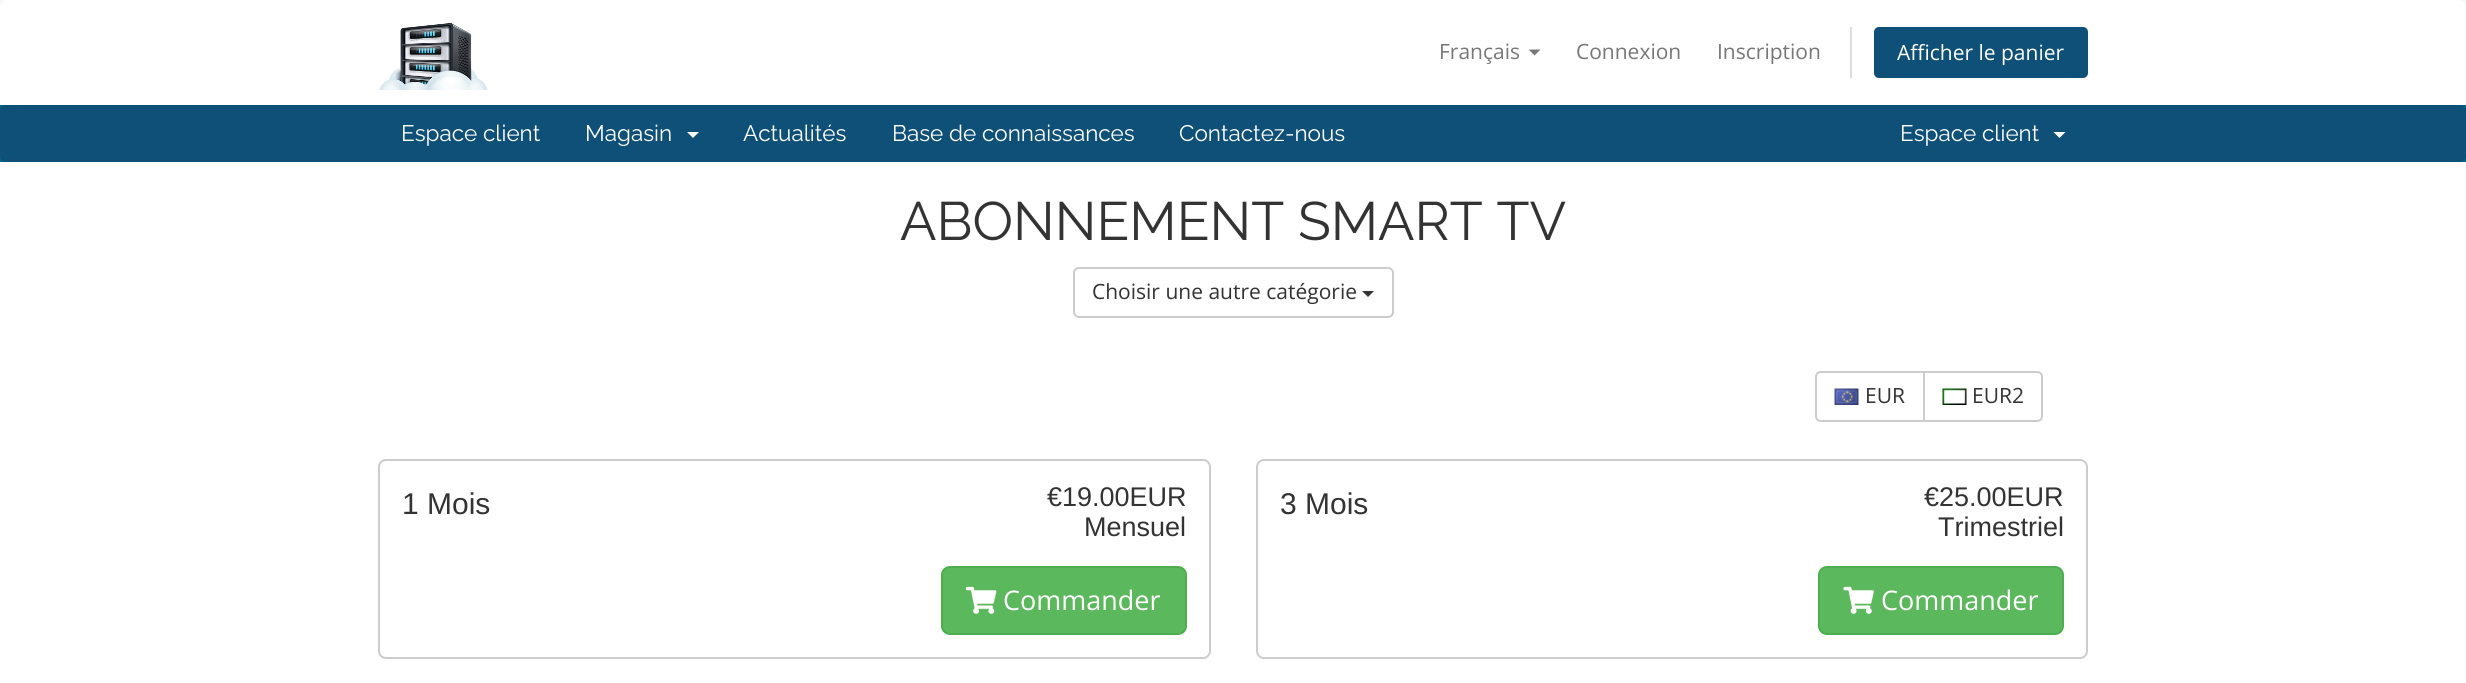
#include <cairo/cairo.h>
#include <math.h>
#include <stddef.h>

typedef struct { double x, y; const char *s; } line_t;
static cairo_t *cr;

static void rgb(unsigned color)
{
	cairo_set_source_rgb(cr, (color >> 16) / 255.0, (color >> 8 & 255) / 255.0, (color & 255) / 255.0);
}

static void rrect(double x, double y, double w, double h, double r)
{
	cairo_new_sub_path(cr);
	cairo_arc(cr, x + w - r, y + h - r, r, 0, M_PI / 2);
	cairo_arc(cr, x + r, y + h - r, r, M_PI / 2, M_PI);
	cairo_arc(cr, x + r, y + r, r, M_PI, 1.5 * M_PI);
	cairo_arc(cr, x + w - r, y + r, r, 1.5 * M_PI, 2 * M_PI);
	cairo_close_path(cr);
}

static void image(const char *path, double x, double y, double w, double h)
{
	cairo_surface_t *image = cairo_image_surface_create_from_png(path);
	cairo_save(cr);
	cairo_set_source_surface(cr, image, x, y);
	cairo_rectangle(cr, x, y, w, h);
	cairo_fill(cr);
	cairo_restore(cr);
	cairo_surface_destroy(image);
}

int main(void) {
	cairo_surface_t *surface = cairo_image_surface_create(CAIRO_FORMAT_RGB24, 2466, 683);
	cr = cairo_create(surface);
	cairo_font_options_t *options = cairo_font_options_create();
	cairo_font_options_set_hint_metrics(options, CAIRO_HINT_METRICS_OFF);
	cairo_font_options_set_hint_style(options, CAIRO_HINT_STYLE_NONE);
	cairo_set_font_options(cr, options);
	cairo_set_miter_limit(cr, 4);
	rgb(0xf8f8f8);
	cairo_paint(cr);
	rgb(0xffffff);
	cairo_new_path(cr);
	cairo_move_to(cr, 8, 0);
	cairo_line_to(cr, 2458, 0);
	cairo_curve_to(cr, 2462.5, 0, 2466, 3.5, 2466, 8);
	cairo_line_to(cr, 2466, 105);
	cairo_line_to(cr, 0, 105);
	cairo_line_to(cr, 0, 8);
	cairo_curve_to(cr, 0, 3.5, 3.5, 0, 8, 0);
	cairo_close_path(cr);
	cairo_fill(cr);
	image("img/1.png", 379, 22, 109, 68);
	rgb(0x777777);
	cairo_new_path(cr);
	cairo_move_to(cr, 1528.5, 49.5);
	cairo_line_to(cr, 1540.5, 49.5);
	cairo_line_to(cr, 1534.5, 55.5);
	cairo_close_path(cr);
	cairo_fill(cr);
	rgb(0xdddddd);
	cairo_rectangle(cr, 1850, 27, 2, 51);
	cairo_fill(cr);
	rgb(0x0e5077);
	rrect(1874, 27, 214, 51, 5);
	cairo_fill(cr);
	rgb(0x006687);
	cairo_rectangle(cr, 0, 105, 2466, 57);
	cairo_fill(cr);
	rgb(0x0e5077);
	rrect(0, 105, 2466, 57, 6);
	cairo_fill(cr);
	rgb(0xffffff);
	cairo_new_path(cr);
	cairo_move_to(cr, 687, 132);
	cairo_line_to(cr, 699, 132);
	cairo_line_to(cr, 693, 138);
	cairo_close_path(cr);
	cairo_fill(cr);
	cairo_new_path(cr);
	cairo_move_to(cr, 2053.5, 132);
	cairo_line_to(cr, 2065.5, 132);
	cairo_line_to(cr, 2059.5, 138);
	cairo_close_path(cr);
	cairo_fill(cr);
	cairo_rectangle(cr, 0, 162, 2466, 521);
	cairo_fill(cr);
	rrect(1074, 268, 319, 49, 5);
	rgb(0xcccccc);
	cairo_stroke(cr);
	rgb(0x333333);
	cairo_new_path(cr);
	cairo_move_to(cr, 1362, 291);
	cairo_line_to(cr, 1374, 291);
	cairo_line_to(cr, 1368, 297);
	cairo_close_path(cr);
	cairo_fill(cr);
	cairo_new_path(cr);
	cairo_move_to(cr, 1821, 372);
	cairo_line_to(cr, 1924, 372);
	cairo_line_to(cr, 1924, 421);
	cairo_line_to(cr, 1821, 421);
	cairo_curve_to(cr, 1818, 421, 1816, 419, 1816, 416);
	cairo_line_to(cr, 1816, 377);
	cairo_curve_to(cr, 1816, 374, 1818, 372, 1821, 372);
	cairo_close_path(cr);
	rgb(0xcccccc);
	cairo_stroke(cr);
	image("img/2.png", 1834, 388, 25, 17);
	rgb(0xffffff);
	cairo_new_path(cr);
	cairo_move_to(cr, 1924, 372);
	cairo_line_to(cr, 2037, 372);
	cairo_curve_to(cr, 2040, 372, 2042, 374, 2042, 377);
	cairo_line_to(cr, 2042, 416);
	cairo_curve_to(cr, 2042, 419, 2040, 421, 2037, 421);
	cairo_line_to(cr, 1924, 421);
	cairo_close_path(cr);
	cairo_fill_preserve(cr);
	rgb(0xcccccc);
	cairo_stroke(cr);
	image("img/3.png", 1942, 388, 25, 17);
	rrect(379, 460, 831, 198, 7);
	cairo_stroke(cr);
	rgb(0x5cb85c);
	rrect(942, 567, 244, 67, 8);
	cairo_fill_preserve(cr);
	rgb(0x4cae4c);
	cairo_stroke(cr);
	image("img/4.png", 966, 586, 31, 28);
	rrect(1257, 460, 830, 198, 7);
	rgb(0xcccccc);
	cairo_stroke(cr);
	rgb(0x5cb85c);
	rrect(1819, 567, 244, 67, 8);
	cairo_fill_preserve(cr);
	rgb(0x4cae4c);
	cairo_stroke(cr);
	image("img/5.png", 1843, 586, 31, 28);
	cairo_select_font_face(cr, "Open Sans", CAIRO_FONT_SLANT_NORMAL, CAIRO_FONT_WEIGHT_NORMAL);
	cairo_set_font_size(cr, 21);
	rgb(0x777777);
	{
		static const line_t items[] = {
			{1439, 59, "Français"},
			{1576, 59, "Connexion"},
			{1717, 59, "Inscription"},
		};
		for (size_t i = 0; i < sizeof items / sizeof *items; i++) {
			cairo_move_to(cr, items[i].x, items[i].y);
			cairo_show_text(cr, items[i].s);
		}
	}
	rgb(0xffffff);
	cairo_move_to(cr, 1897, 60);
	cairo_show_text(cr, "Afficher le panier");
	cairo_select_font_face(cr, "Raleway", CAIRO_FONT_SLANT_NORMAL, CAIRO_FONT_WEIGHT_NORMAL);
	cairo_set_font_size(cr, 22.5);
	{
		static const line_t items[] = {
			{401, 141, "Espace client"},
			{585, 141, "Magasin"},
			{743, 141, "Actualités"},
			{892, 141, "Base de connaissances"},
			{1179, 141, "Contactez-nous"},
			{1900, 141, "Espace client"},
		};
		for (size_t i = 0; i < sizeof items / sizeof *items; i++) {
			cairo_move_to(cr, items[i].x, items[i].y);
			cairo_show_text(cr, items[i].s);
		}
	}
	cairo_set_font_size(cr, 54);
	rgb(0x333333);
	cairo_move_to(cr, 900, 240);
	cairo_show_text(cr, "ABONNEMENT SMART TV");
	cairo_select_font_face(cr, "Open Sans", CAIRO_FONT_SLANT_NORMAL, CAIRO_FONT_WEIGHT_NORMAL);
	cairo_set_font_size(cr, 21);
	{
		static const line_t items[] = {
			{1092, 299, "Choisir une autre catégorie"},
			{1865, 403, "EUR"},
			{1972, 403, "EUR2"},
		};
		for (size_t i = 0; i < sizeof items / sizeof *items; i++) {
			cairo_move_to(cr, items[i].x, items[i].y);
			cairo_show_text(cr, items[i].s);
		}
	}
	cairo_select_font_face(cr, "Liberation Sans", CAIRO_FONT_SLANT_NORMAL, CAIRO_FONT_WEIGHT_NORMAL);
	cairo_set_font_size(cr, 30);
	cairo_move_to(cr, 402, 514);
	cairo_show_text(cr, "1 Mois");
	cairo_set_font_size(cr, 27);
	cairo_move_to(cr, 1047, 506);
	cairo_show_text(cr, "€19.00EUR");
	cairo_move_to(cr, 1084, 536);
	cairo_show_text(cr, "Mensuel");
	cairo_select_font_face(cr, "Open Sans", CAIRO_FONT_SLANT_NORMAL, CAIRO_FONT_WEIGHT_NORMAL);
	rgb(0xffffff);
	cairo_move_to(cr, 1003, 610);
	cairo_show_text(cr, "Commander");
	cairo_select_font_face(cr, "Liberation Sans", CAIRO_FONT_SLANT_NORMAL, CAIRO_FONT_WEIGHT_NORMAL);
	cairo_set_font_size(cr, 30);
	rgb(0x333333);
	cairo_move_to(cr, 1280, 514);
	cairo_show_text(cr, "3 Mois");
	cairo_set_font_size(cr, 27);
	cairo_move_to(cr, 1924, 506);
	cairo_show_text(cr, "€25.00EUR");
	cairo_move_to(cr, 1938, 536);
	cairo_show_text(cr, "Trimestriel");
	cairo_select_font_face(cr, "Open Sans", CAIRO_FONT_SLANT_NORMAL, CAIRO_FONT_WEIGHT_NORMAL);
	rgb(0xffffff);
	cairo_move_to(cr, 1881, 610);
	cairo_show_text(cr, "Commander");
	cairo_surface_write_to_png(surface, "page.png");
	cairo_font_options_destroy(options);
	cairo_destroy(cr);
	cairo_surface_destroy(surface);
	return 0;
}
